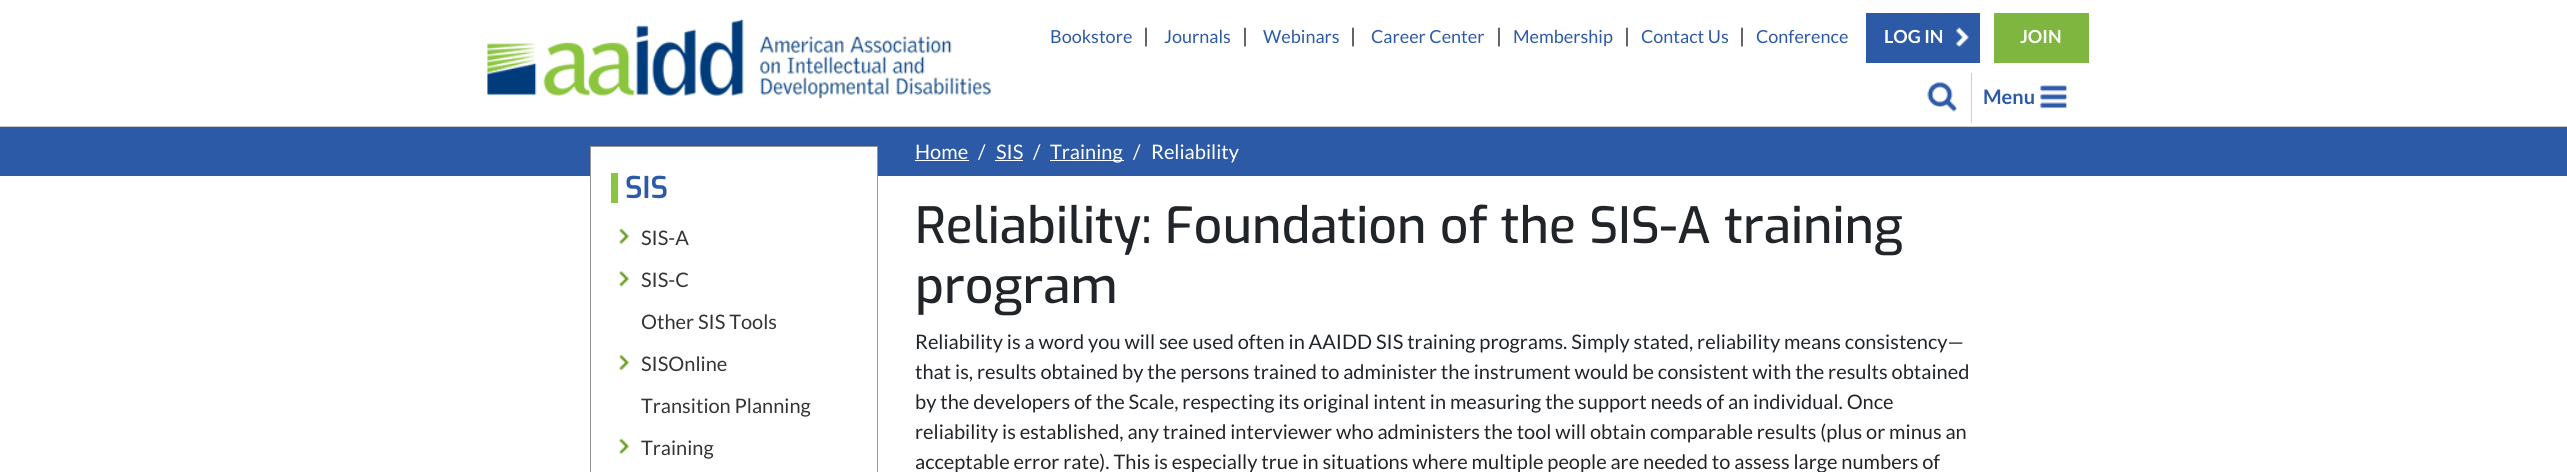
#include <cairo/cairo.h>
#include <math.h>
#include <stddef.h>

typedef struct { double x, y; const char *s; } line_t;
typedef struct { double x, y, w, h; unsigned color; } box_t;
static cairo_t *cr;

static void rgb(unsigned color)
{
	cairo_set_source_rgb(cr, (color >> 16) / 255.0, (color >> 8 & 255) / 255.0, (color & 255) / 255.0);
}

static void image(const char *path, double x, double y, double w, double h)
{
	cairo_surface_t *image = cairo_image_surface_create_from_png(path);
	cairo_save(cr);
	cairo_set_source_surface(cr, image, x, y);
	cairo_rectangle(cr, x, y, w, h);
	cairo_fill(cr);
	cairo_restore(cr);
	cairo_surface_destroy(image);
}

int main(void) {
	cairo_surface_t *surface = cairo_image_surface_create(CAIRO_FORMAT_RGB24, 2567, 472);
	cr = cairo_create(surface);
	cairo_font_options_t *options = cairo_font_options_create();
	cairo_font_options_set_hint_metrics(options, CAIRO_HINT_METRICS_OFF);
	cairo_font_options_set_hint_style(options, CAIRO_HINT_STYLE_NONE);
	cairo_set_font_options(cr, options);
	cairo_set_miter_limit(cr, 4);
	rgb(0xffffff);
	cairo_paint(cr);
	image("img/1.png", 487, 19, 504, 80);
	rgb(0x2c5aa7);
	cairo_rectangle(cr, 1866, 13, 114, 50);
	cairo_fill(cr);
	image("img/2.png", 1956, 27, 13, 20);
	rgb(0x7fb63f);
	cairo_rectangle(cr, 1994, 13, 95, 50);
	cairo_fill(cr);
	image("img/3.png", 1927, 82, 30, 30);
	image("img/4.png", 2039, 85, 29, 24);
	{
		static const box_t items[] = {
			{1971, 73, 1, 50, 0xcccccc},
			{0, 126, 2567, 1, 0xcccccc},
			{0, 127, 2567, 49, 0x2c5aa7},
			{915, 160, 54, 1, 0xffffff},
			{995, 160, 28, 1, 0xffffff},
			{1050, 160, 74, 1, 0xffffff},
			{591, 147, 286, 29, 0xffffff},
		};
		for (size_t i = 0; i < sizeof items / sizeof *items; i++) {
			rgb(items[i].color);
			cairo_rectangle(cr, items[i].x, items[i].y, items[i].w, items[i].h);
			cairo_fill(cr);
		}
	}
	cairo_rectangle(cr, 590.5, 146.5, 287, 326);
	rgb(0x959595);
	cairo_set_line_width(cr, 1);
	cairo_stroke(cr);
	rgb(0x8bc53f);
	cairo_rectangle(cr, 611, 173, 7, 30);
	cairo_fill(cr);
	image("img/5.png", 618, 228, 11, 16);
	image("img/6.png", 618, 271, 11, 16);
	image("img/7.png", 618, 354, 11, 17);
	image("img/5.png", 618, 438, 11, 16);
	cairo_select_font_face(cr, "Lato", CAIRO_FONT_SLANT_NORMAL, CAIRO_FONT_WEIGHT_NORMAL);
	cairo_set_font_size(cr, 18);
	rgb(0x2c5aa7);
	cairo_move_to(cr, 1050, 43);
	cairo_show_text(cr, "Bookstore");
	cairo_set_font_size(cr, 20);
	rgb(0x212529);
	cairo_move_to(cr, 1143, 43);
	cairo_show_text(cr, "|");
	cairo_set_font_size(cr, 18);
	rgb(0x2c5aa7);
	cairo_move_to(cr, 1164, 43);
	cairo_show_text(cr, "Journals");
	cairo_set_font_size(cr, 20);
	rgb(0x212529);
	cairo_move_to(cr, 1242, 43);
	cairo_show_text(cr, "|");
	cairo_set_font_size(cr, 18);
	rgb(0x2c5aa7);
	cairo_move_to(cr, 1263, 43);
	cairo_show_text(cr, "Webinars");
	cairo_set_font_size(cr, 20);
	rgb(0x212529);
	cairo_move_to(cr, 1350, 43);
	cairo_show_text(cr, "|");
	cairo_set_font_size(cr, 18);
	rgb(0x2c5aa7);
	cairo_move_to(cr, 1371, 43);
	cairo_show_text(cr, "Career Center");
	cairo_set_font_size(cr, 20);
	rgb(0x212529);
	cairo_move_to(cr, 1496, 43);
	cairo_show_text(cr, "|");
	cairo_set_font_size(cr, 18);
	rgb(0x2c5aa7);
	cairo_move_to(cr, 1513, 43);
	cairo_show_text(cr, "Membership");
	cairo_set_font_size(cr, 20);
	rgb(0x212529);
	cairo_move_to(cr, 1624, 43);
	cairo_show_text(cr, "|");
	cairo_set_font_size(cr, 18);
	rgb(0x2c5aa7);
	cairo_move_to(cr, 1641, 43);
	cairo_show_text(cr, "Contact Us");
	cairo_set_font_size(cr, 20);
	rgb(0x212529);
	cairo_move_to(cr, 1739, 43);
	cairo_show_text(cr, "|");
	cairo_set_font_size(cr, 18);
	rgb(0x2c5aa7);
	cairo_move_to(cr, 1756, 43);
	cairo_show_text(cr, "Conference");
	cairo_select_font_face(cr, "Lato", CAIRO_FONT_SLANT_NORMAL, CAIRO_FONT_WEIGHT_BOLD);
	rgb(0xffffff);
	cairo_move_to(cr, 1884, 43);
	cairo_show_text(cr, "LOG IN");
	cairo_move_to(cr, 2020, 43);
	cairo_show_text(cr, "JOIN");
	cairo_set_font_size(cr, 20);
	rgb(0x2c5aa7);
	cairo_move_to(cr, 1983, 104);
	cairo_show_text(cr, "Menu");
	cairo_select_font_face(cr, "Lato", CAIRO_FONT_SLANT_NORMAL, CAIRO_FONT_WEIGHT_NORMAL);
	rgb(0xffffff);
	{
		static const line_t items[] = {
			{915, 159, "Home"},
			{978, 159, "/"},
			{996, 159, "SIS"},
			{1033, 159, "/"},
			{1050, 159, "Training"},
			{1133, 159, "/"},
			{1151, 159, "Reliability"},
		};
		for (size_t i = 0; i < sizeof items / sizeof *items; i++) {
			cairo_move_to(cr, items[i].x, items[i].y);
			cairo_show_text(cr, items[i].s);
		}
	}
	cairo_select_font_face(cr, "Exo SemiBold", CAIRO_FONT_SLANT_NORMAL, CAIRO_FONT_WEIGHT_NORMAL);
	cairo_set_font_size(cr, 30);
	rgb(0x2c5aa7);
	cairo_move_to(cr, 625, 198);
	cairo_show_text(cr, "SIS");
	cairo_select_font_face(cr, "Lato", CAIRO_FONT_SLANT_NORMAL, CAIRO_FONT_WEIGHT_NORMAL);
	cairo_set_font_size(cr, 20);
	rgb(0x343434);
	{
		static const line_t items[] = {
			{641, 245, "SIS-A"},
			{641, 287, "SIS-C"},
			{641, 329, "Other SIS Tools"},
			{641, 371, "SISOnline"},
			{641, 413, "Transition Planning"},
			{641, 455, "Training"},
		};
		for (size_t i = 0; i < sizeof items / sizeof *items; i++) {
			cairo_move_to(cr, items[i].x, items[i].y);
			cairo_show_text(cr, items[i].s);
		}
	}
	cairo_select_font_face(cr, "Exo Medium", CAIRO_FONT_SLANT_NORMAL, CAIRO_FONT_WEIGHT_NORMAL);
	cairo_set_font_size(cr, 50);
	rgb(0x212529);
	cairo_move_to(cr, 915, 243);
	cairo_show_text(cr, "Reliability: Foundation of the SIS-A training");
	cairo_move_to(cr, 915, 303);
	cairo_show_text(cr, "program");
	cairo_select_font_face(cr, "Lato", CAIRO_FONT_SLANT_NORMAL, CAIRO_FONT_WEIGHT_NORMAL);
	cairo_set_font_size(cr, 20);
	{
		static const line_t items[] = {
			{915, 349, "Reliability is a word you will see used often in AAIDD SIS training programs. Simply stated, reliability means consistency—"},
			{915, 379, "that is, results obtained by the persons trained to administer the instrument would be consistent with the results obtained"},
			{915, 409, "by the developers of the Scale, respecting its original intent in measuring the support needs of an individual. Once"},
			{915, 439, "reliability is established, any trained interviewer who administers the tool will obtain comparable results (plus or minus an"},
			{915, 469, "acceptable error rate). This is especially true in situations where multiple people are needed to assess large numbers of"},
		};
		for (size_t i = 0; i < sizeof items / sizeof *items; i++) {
			cairo_move_to(cr, items[i].x, items[i].y);
			cairo_show_text(cr, items[i].s);
		}
	}
	cairo_surface_write_to_png(surface, "page.png");
	cairo_font_options_destroy(options);
	cairo_destroy(cr);
	cairo_surface_destroy(surface);
	return 0;
}
